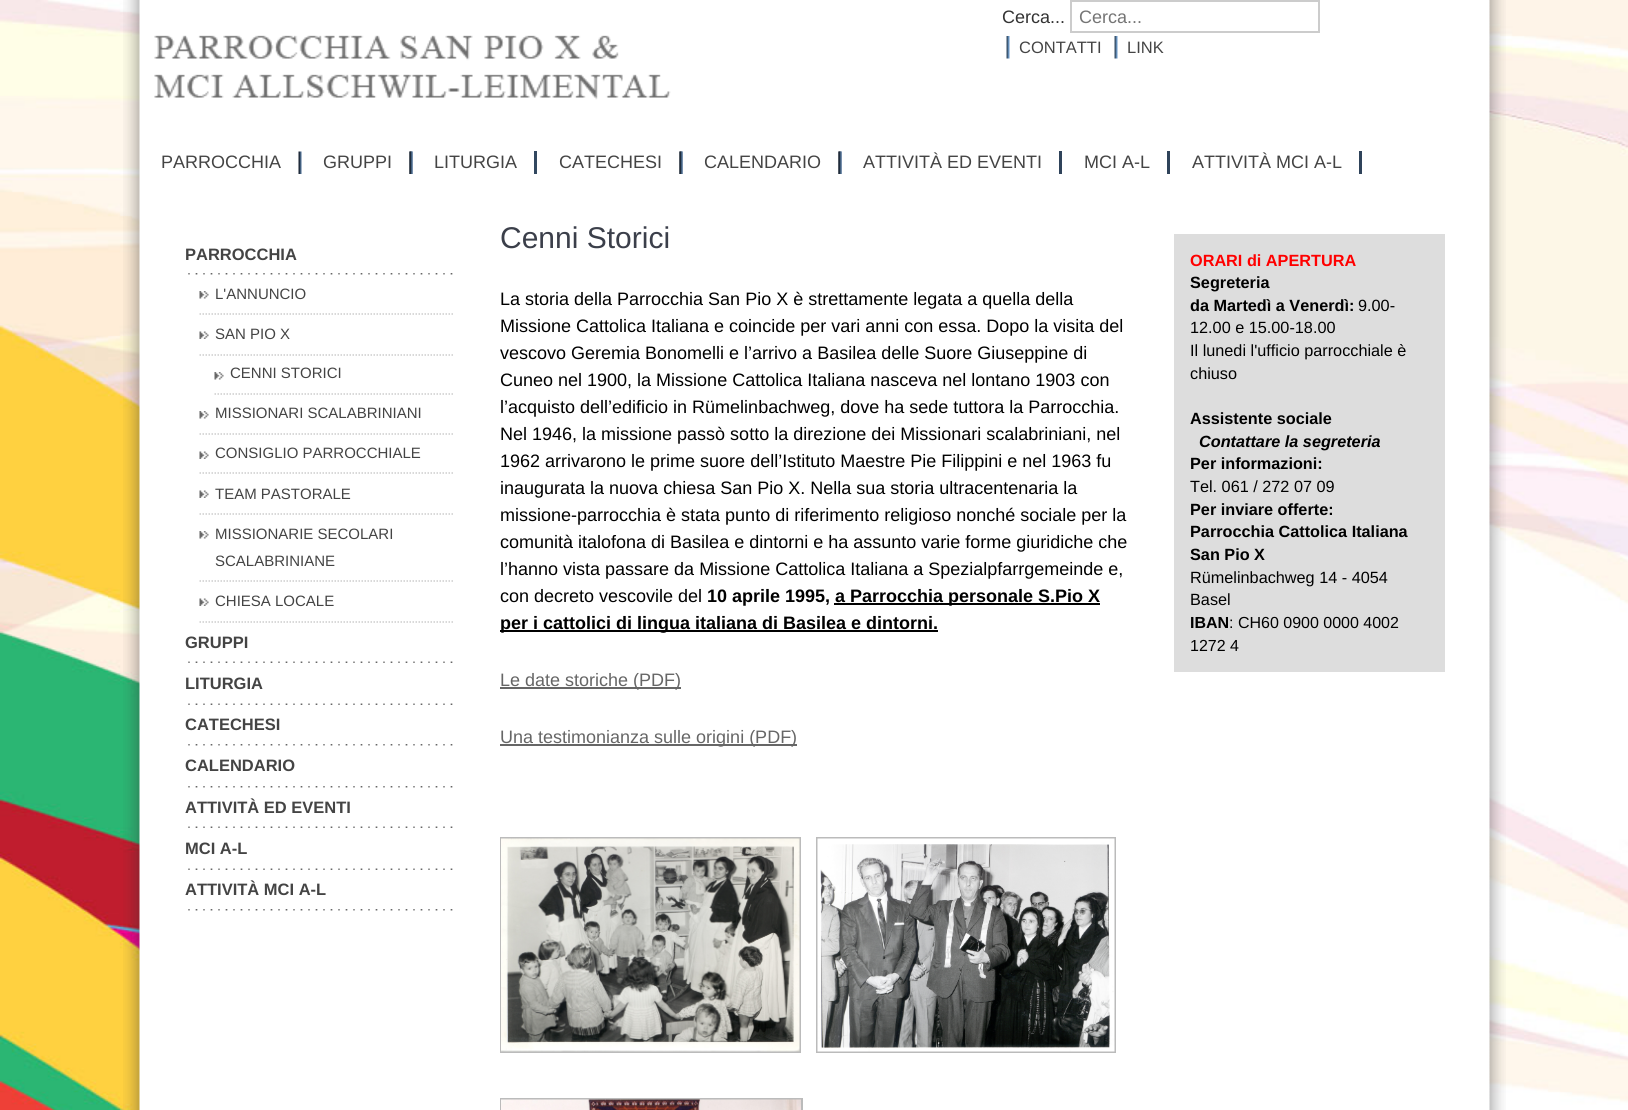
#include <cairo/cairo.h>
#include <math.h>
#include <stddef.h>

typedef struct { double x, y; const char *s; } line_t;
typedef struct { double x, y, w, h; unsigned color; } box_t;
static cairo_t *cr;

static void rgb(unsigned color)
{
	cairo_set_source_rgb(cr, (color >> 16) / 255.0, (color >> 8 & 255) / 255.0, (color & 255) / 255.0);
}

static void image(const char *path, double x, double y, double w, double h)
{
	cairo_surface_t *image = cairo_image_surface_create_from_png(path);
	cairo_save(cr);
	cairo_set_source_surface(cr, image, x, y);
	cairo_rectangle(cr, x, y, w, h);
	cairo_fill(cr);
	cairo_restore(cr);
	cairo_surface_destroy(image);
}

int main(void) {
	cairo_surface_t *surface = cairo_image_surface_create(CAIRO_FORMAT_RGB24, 1628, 1110);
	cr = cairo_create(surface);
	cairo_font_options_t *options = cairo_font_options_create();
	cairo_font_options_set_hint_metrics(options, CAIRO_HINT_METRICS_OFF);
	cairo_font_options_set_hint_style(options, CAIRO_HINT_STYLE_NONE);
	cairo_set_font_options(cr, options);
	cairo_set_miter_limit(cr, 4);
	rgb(0xffffff);
	cairo_paint(cr);
	image("img/1.png", 0, 0, 1628, 1110);
	image("img/2.png", 123, 0, 1383, 189);
	image("img/3.png", 154, 35, 517, 65);
	cairo_rectangle(cr, 1071, 1, 248, 31);
	rgb(0xcccccc);
	cairo_stroke(cr);
	image("img/4.png", 1006, 36, 4, 23);
	image("img/4.png", 1114, 36, 4, 23);
	image("img/5.png", 298, 151, 4, 23);
	image("img/5.png", 409, 151, 4, 23);
	image("img/6.png", 409, 151, 4, 23);
	rgb(0x324860);
	cairo_rectangle(cr, 534, 151, 3, 23);
	cairo_fill(cr);
	image("img/5.png", 679, 151, 4, 23);
	image("img/6.png", 679, 151, 4, 23);
	image("img/5.png", 838, 151, 4, 23);
	image("img/6.png", 838, 151, 4, 23);
	{
		static const box_t items[] = {
			{1059, 151, 3, 23, 0x2f435a},
			{1167, 151, 3, 23, 0x2f435a},
			{1359, 151, 3, 23, 0x2f435a},
		};
		for (size_t i = 0; i < sizeof items / sizeof *items; i++) {
			rgb(items[i].color);
			cairo_rectangle(cr, items[i].x, items[i].y, items[i].w, items[i].h);
			cairo_fill(cr);
		}
	}
	image("img/7.png", 123, 189, 1383, 921);
	image("img/8.png", 188, 273, 265, 2);
	image("img/9.png", 199, 291, 10, 8);
	cairo_new_path(cr);
	cairo_move_to(cr, 199.5, 314);
	cairo_line_to(cr, 454.5, 314);
	rgb(0xcccccc);
	cairo_set_line_width(cr, 1.5);
	cairo_set_dash(cr, (double[]){1.5, 1.5}, 2, 0);
	cairo_stroke(cr);
	image("img/10.png", 199, 331, 10, 8);
	cairo_new_path(cr);
	cairo_move_to(cr, 199.5, 355);
	cairo_line_to(cr, 454.5, 355);
	cairo_stroke(cr);
	image("img/9.png", 214, 372, 10, 8);
	cairo_new_path(cr);
	cairo_move_to(cr, 214.5, 394);
	cairo_line_to(cr, 454.5, 394);
	cairo_stroke(cr);
	image("img/9.png", 199, 411, 10, 8);
	cairo_new_path(cr);
	cairo_move_to(cr, 199.5, 434);
	cairo_line_to(cr, 454.5, 434);
	cairo_stroke(cr);
	image("img/10.png", 199, 451, 10, 8);
	cairo_new_path(cr);
	cairo_move_to(cr, 199.5, 473);
	cairo_line_to(cr, 454.5, 473);
	cairo_stroke(cr);
	image("img/10.png", 199, 490, 10, 8);
	cairo_new_path(cr);
	cairo_move_to(cr, 199.5, 514);
	cairo_line_to(cr, 454.5, 514);
	cairo_stroke(cr);
	image("img/9.png", 199, 531, 10, 8);
	cairo_new_path(cr);
	cairo_move_to(cr, 199.5, 581);
	cairo_line_to(cr, 454.5, 581);
	cairo_stroke(cr);
	image("img/10.png", 199, 598, 10, 8);
	cairo_new_path(cr);
	cairo_move_to(cr, 199.5, 622);
	cairo_line_to(cr, 454.5, 622);
	cairo_stroke(cr);
	image("img/11.png", 188, 661, 265, 2);
	image("img/11.png", 188, 703, 265, 2);
	image("img/8.png", 188, 744, 265, 2);
	image("img/8.png", 188, 786, 265, 2);
	image("img/11.png", 188, 826, 265, 2);
	image("img/11.png", 188, 868, 265, 2);
	image("img/8.png", 188, 909, 265, 2);
	{
		static const box_t items[] = {
			{834, 603, 266, 2, 0x000000},
			{500, 630, 438, 2, 0x000000},
			{500, 687, 181, 2, 0x666666},
			{500, 744, 297, 2, 0x666666},
		};
		for (size_t i = 0; i < sizeof items / sizeof *items; i++) {
			rgb(items[i].color);
			cairo_rectangle(cr, items[i].x, items[i].y, items[i].w, items[i].h);
			cairo_fill(cr);
		}
	}
	cairo_rectangle(cr, 501, 838, 299, 214);
	rgb(0xbbbbbb);
	cairo_set_line_width(cr, 2);
	cairo_set_dash(cr, NULL, 0, 0);
	cairo_stroke(cr);
	cairo_rectangle(cr, 817, 838, 298, 214);
	cairo_stroke(cr);
	image("img/12.png", 501, 838, 299, 214);
	image("img/13.png", 817, 838, 298, 214);
	cairo_rectangle(cr, 501, 1099, 301, 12);
	cairo_stroke(cr);
	image("img/14.png", 501, 1099, 300, 11);
	rgb(0xdddddd);
	cairo_rectangle(cr, 1174, 234, 271, 438);
	cairo_fill(cr);
	cairo_select_font_face(cr, "Liberation Sans", CAIRO_FONT_SLANT_NORMAL, CAIRO_FONT_WEIGHT_NORMAL);
	cairo_set_font_size(cr, 18);
	rgb(0x333333);
	cairo_move_to(cr, 1002, 23);
	cairo_show_text(cr, "Cerca...");
	rgb(0x757575);
	cairo_move_to(cr, 1079, 23);
	cairo_show_text(cr, "Cerca...");
	cairo_set_font_size(cr, 16.5);
	rgb(0x444444);
	cairo_move_to(cr, 1019, 53);
	cairo_show_text(cr, "CONTATTI");
	cairo_move_to(cr, 1127, 53);
	cairo_show_text(cr, "LINK");
	cairo_set_font_size(cr, 18);
	{
		static const line_t items[] = {
			{161, 168, "PARROCCHIA"},
			{323, 168, "GRUPPI"},
			{434, 168, "LITURGIA"},
			{559, 168, "CATECHESI"},
			{704, 168, "CALENDARIO"},
			{863, 168, "ATTIVITÀ ED EVENTI"},
			{1084, 168, "MCI A-L"},
			{1192, 168, "ATTIVITÀ MCI A-L"},
		};
		for (size_t i = 0; i < sizeof items / sizeof *items; i++) {
			cairo_move_to(cr, items[i].x, items[i].y);
			cairo_show_text(cr, items[i].s);
		}
	}
	cairo_select_font_face(cr, "Liberation Sans", CAIRO_FONT_SLANT_NORMAL, CAIRO_FONT_WEIGHT_BOLD);
	cairo_set_font_size(cr, 16.5);
	cairo_move_to(cr, 185, 260);
	cairo_show_text(cr, "PARROCCHIA");
	cairo_select_font_face(cr, "Liberation Sans", CAIRO_FONT_SLANT_NORMAL, CAIRO_FONT_WEIGHT_NORMAL);
	cairo_set_font_size(cr, 15);
	{
		static const line_t items[] = {
			{215, 299, "L'ANNUNCIO"},
			{215, 339, "SAN PIO X"},
			{230, 378, "CENNI STORICI"},
			{215, 418, "MISSIONARI SCALABRINIANI"},
			{215, 458, "CONSIGLIO PARROCCHIALE"},
			{215, 499, "TEAM PASTORALE"},
			{215, 539, "MISSIONARIE SECOLARI"},
			{215, 566, "SCALABRINIANE"},
			{215, 606, "CHIESA LOCALE"},
		};
		for (size_t i = 0; i < sizeof items / sizeof *items; i++) {
			cairo_move_to(cr, items[i].x, items[i].y);
			cairo_show_text(cr, items[i].s);
		}
	}
	cairo_select_font_face(cr, "Liberation Sans", CAIRO_FONT_SLANT_NORMAL, CAIRO_FONT_WEIGHT_BOLD);
	cairo_set_font_size(cr, 16.5);
	{
		static const line_t items[] = {
			{185, 648, "GRUPPI"},
			{185, 689, "LITURGIA"},
			{185, 730, "CATECHESI"},
			{185, 771, "CALENDARIO"},
			{185, 813, "ATTIVITÀ ED EVENTI"},
			{185, 854, "MCI A-L"},
			{185, 895, "ATTIVITÀ MCI A-L"},
		};
		for (size_t i = 0; i < sizeof items / sizeof *items; i++) {
			cairo_move_to(cr, items[i].x, items[i].y);
			cairo_show_text(cr, items[i].s);
		}
	}
	cairo_select_font_face(cr, "Liberation Sans", CAIRO_FONT_SLANT_NORMAL, CAIRO_FONT_WEIGHT_NORMAL);
	cairo_set_font_size(cr, 30);
	rgb(0x3b3f4a);
	cairo_move_to(cr, 500, 248);
	cairo_show_text(cr, "Cenni Storici");
	cairo_set_font_size(cr, 18);
	rgb(0x000000);
	{
		static const line_t items[] = {
			{500, 305, "La storia della Parrocchia San Pio X è strettamente legata a quella della"},
			{500, 332, "Missione Cattolica Italiana e coincide per vari anni con essa. Dopo la visita del"},
			{500, 359, "vescovo Geremia Bonomelli e l’arrivo a Basilea delle Suore Giuseppine di"},
			{500, 386, "Cuneo nel 1900, la Missione Cattolica Italiana nasceva nel lontano 1903 con"},
			{500, 413, "l’acquisto dell’edificio in Rümelinbachweg, dove ha sede tuttora la Parrocchia."},
			{500, 440, "Nel 1946, la missione passò sotto la direzione dei Missionari scalabriniani, nel"},
			{500, 467, "1962 arrivarono le prime suore dell’Istituto Maestre Pie Filippini e nel 1963 fu"},
			{500, 494, "inaugurata la nuova chiesa San Pio X. Nella sua storia ultracentenaria la"},
			{500, 521, "missione-parrocchia è stata punto di riferimento religioso nonché sociale per la"},
			{500, 548, "comunità italofona di Basilea e dintorni e ha assunto varie forme giuridiche che"},
			{500, 575, "l’hanno vista passare da Missione Cattolica Italiana a Spezialpfarrgemeinde e,"},
			{500, 602, "con decreto vescovile del"},
		};
		for (size_t i = 0; i < sizeof items / sizeof *items; i++) {
			cairo_move_to(cr, items[i].x, items[i].y);
			cairo_show_text(cr, items[i].s);
		}
	}
	cairo_select_font_face(cr, "Liberation Sans", CAIRO_FONT_SLANT_NORMAL, CAIRO_FONT_WEIGHT_BOLD);
	{
		static const line_t items[] = {
			{707, 602, "10 aprile 1995,"},
			{835, 602, "a Parrocchia personale S.Pio X"},
			{500, 629, "per i cattolici di lingua italiana di Basilea e dintorni."},
		};
		for (size_t i = 0; i < sizeof items / sizeof *items; i++) {
			cairo_move_to(cr, items[i].x, items[i].y);
			cairo_show_text(cr, items[i].s);
		}
	}
	cairo_select_font_face(cr, "Liberation Sans", CAIRO_FONT_SLANT_NORMAL, CAIRO_FONT_WEIGHT_NORMAL);
	rgb(0x666666);
	cairo_move_to(cr, 500, 686);
	cairo_show_text(cr, "Le date storiche (PDF)");
	cairo_move_to(cr, 500, 743);
	cairo_show_text(cr, "Una testimonianza sulle origini (PDF)");
	cairo_select_font_face(cr, "Liberation Sans", CAIRO_FONT_SLANT_NORMAL, CAIRO_FONT_WEIGHT_BOLD);
	cairo_set_font_size(cr, 16.25);
	rgb(0xff0000);
	cairo_move_to(cr, 1190, 266);
	cairo_show_text(cr, "ORARI di APERTURA");
	rgb(0x000000);
	cairo_move_to(cr, 1190, 288);
	cairo_show_text(cr, "Segreteria");
	cairo_move_to(cr, 1190, 311);
	cairo_show_text(cr, "da Martedì a Venerdì:");
	cairo_select_font_face(cr, "Liberation Sans", CAIRO_FONT_SLANT_NORMAL, CAIRO_FONT_WEIGHT_NORMAL);
	{
		static const line_t items[] = {
			{1358, 311, "9.00-"},
			{1190, 333, "12.00 e 15.00-18.00"},
			{1190, 356, "Il lunedi l'ufficio parrocchiale è"},
			{1190, 379, "chiuso"},
		};
		for (size_t i = 0; i < sizeof items / sizeof *items; i++) {
			cairo_move_to(cr, items[i].x, items[i].y);
			cairo_show_text(cr, items[i].s);
		}
	}
	cairo_select_font_face(cr, "Liberation Sans", CAIRO_FONT_SLANT_NORMAL, CAIRO_FONT_WEIGHT_BOLD);
	cairo_move_to(cr, 1190, 424);
	cairo_show_text(cr, "Assistente sociale");
	cairo_select_font_face(cr, "Liberation Sans", CAIRO_FONT_SLANT_ITALIC, CAIRO_FONT_WEIGHT_BOLD);
	cairo_move_to(cr, 1199, 447);
	cairo_show_text(cr, "Contattare la segreteria");
	cairo_select_font_face(cr, "Liberation Sans", CAIRO_FONT_SLANT_NORMAL, CAIRO_FONT_WEIGHT_BOLD);
	cairo_move_to(cr, 1190, 469);
	cairo_show_text(cr, "Per informazioni:");
	cairo_select_font_face(cr, "Liberation Sans", CAIRO_FONT_SLANT_NORMAL, CAIRO_FONT_WEIGHT_NORMAL);
	cairo_move_to(cr, 1190, 492);
	cairo_show_text(cr, "Tel. 061 / 272 07 09");
	cairo_select_font_face(cr, "Liberation Sans", CAIRO_FONT_SLANT_NORMAL, CAIRO_FONT_WEIGHT_BOLD);
	{
		static const line_t items[] = {
			{1190, 515, "Per inviare offerte:"},
			{1190, 537, "Parrocchia Cattolica Italiana"},
			{1190, 560, "San Pio X"},
		};
		for (size_t i = 0; i < sizeof items / sizeof *items; i++) {
			cairo_move_to(cr, items[i].x, items[i].y);
			cairo_show_text(cr, items[i].s);
		}
	}
	cairo_select_font_face(cr, "Liberation Sans", CAIRO_FONT_SLANT_NORMAL, CAIRO_FONT_WEIGHT_NORMAL);
	cairo_move_to(cr, 1190, 583);
	cairo_show_text(cr, "Rümelinbachweg 14 - 4054");
	cairo_move_to(cr, 1190, 605);
	cairo_show_text(cr, "Basel");
	cairo_select_font_face(cr, "Liberation Sans", CAIRO_FONT_SLANT_NORMAL, CAIRO_FONT_WEIGHT_BOLD);
	cairo_set_font_size(cr, 16);
	cairo_move_to(cr, 1190, 628);
	cairo_show_text(cr, "IBAN");
	cairo_select_font_face(cr, "Liberation Sans", CAIRO_FONT_SLANT_NORMAL, CAIRO_FONT_WEIGHT_NORMAL);
	cairo_move_to(cr, 1229, 628);
	cairo_show_text(cr, ": CH60 0900 0000 4002");
	cairo_move_to(cr, 1190, 651);
	cairo_show_text(cr, "1272 4");
	cairo_surface_write_to_png(surface, "page.png");
	cairo_font_options_destroy(options);
	cairo_destroy(cr);
	cairo_surface_destroy(surface);
	return 0;
}
